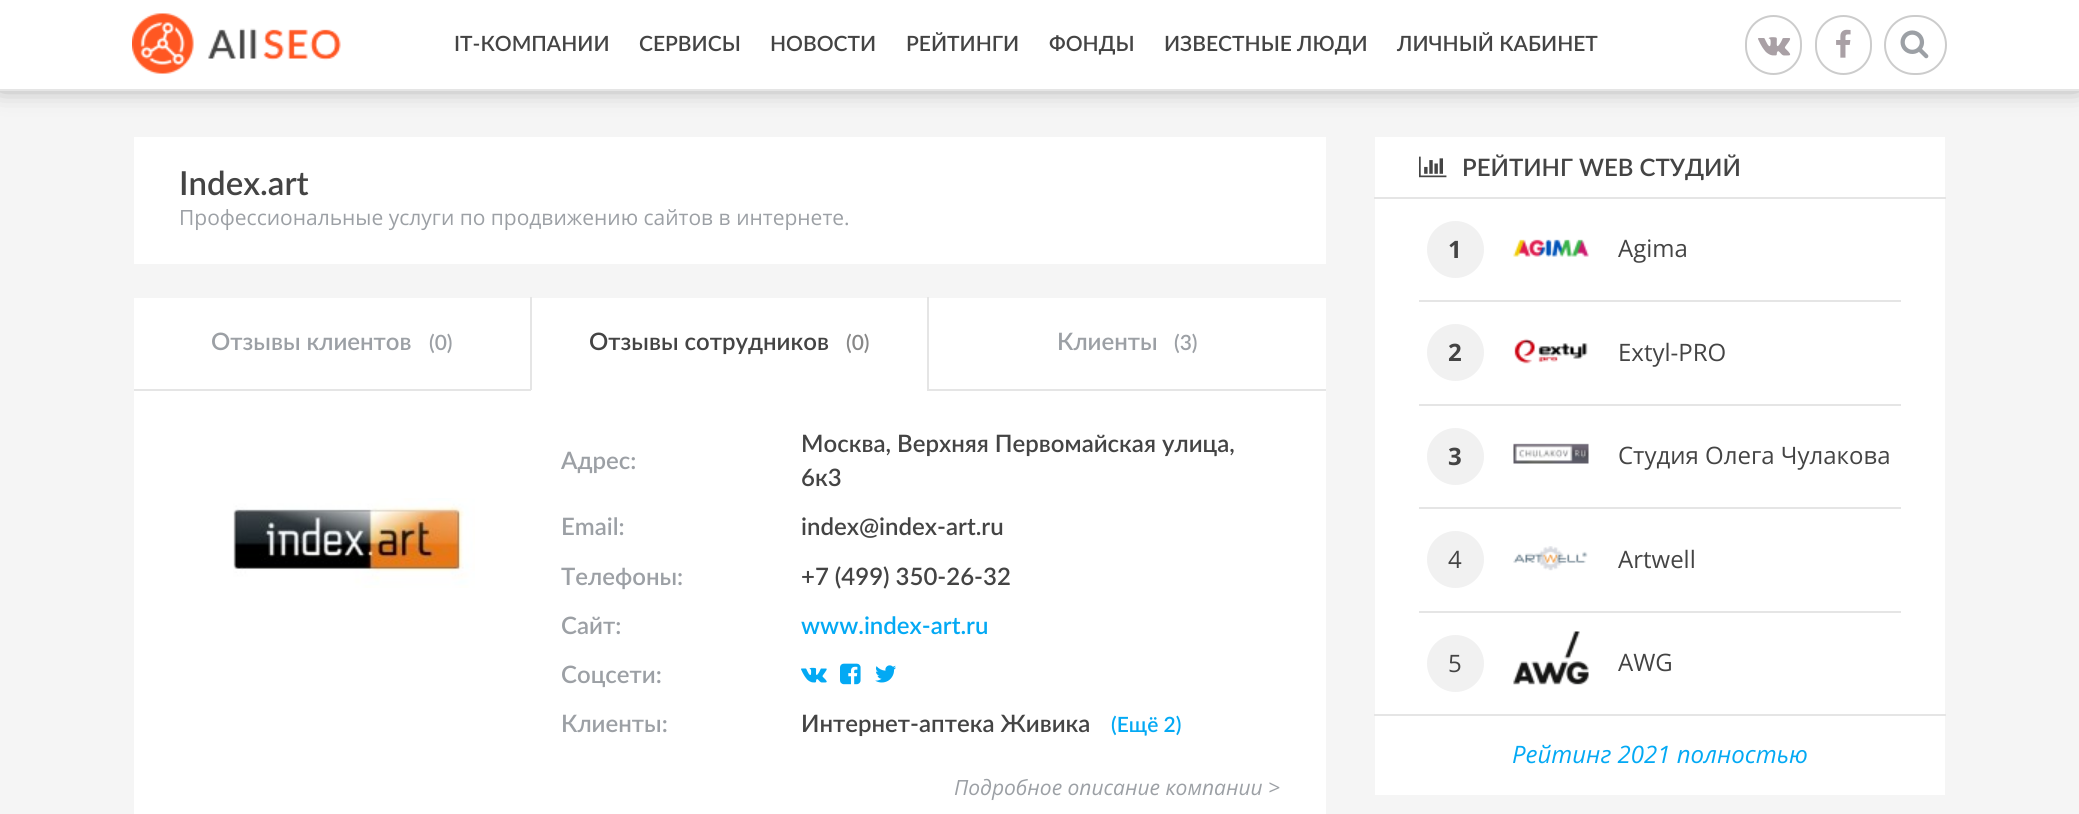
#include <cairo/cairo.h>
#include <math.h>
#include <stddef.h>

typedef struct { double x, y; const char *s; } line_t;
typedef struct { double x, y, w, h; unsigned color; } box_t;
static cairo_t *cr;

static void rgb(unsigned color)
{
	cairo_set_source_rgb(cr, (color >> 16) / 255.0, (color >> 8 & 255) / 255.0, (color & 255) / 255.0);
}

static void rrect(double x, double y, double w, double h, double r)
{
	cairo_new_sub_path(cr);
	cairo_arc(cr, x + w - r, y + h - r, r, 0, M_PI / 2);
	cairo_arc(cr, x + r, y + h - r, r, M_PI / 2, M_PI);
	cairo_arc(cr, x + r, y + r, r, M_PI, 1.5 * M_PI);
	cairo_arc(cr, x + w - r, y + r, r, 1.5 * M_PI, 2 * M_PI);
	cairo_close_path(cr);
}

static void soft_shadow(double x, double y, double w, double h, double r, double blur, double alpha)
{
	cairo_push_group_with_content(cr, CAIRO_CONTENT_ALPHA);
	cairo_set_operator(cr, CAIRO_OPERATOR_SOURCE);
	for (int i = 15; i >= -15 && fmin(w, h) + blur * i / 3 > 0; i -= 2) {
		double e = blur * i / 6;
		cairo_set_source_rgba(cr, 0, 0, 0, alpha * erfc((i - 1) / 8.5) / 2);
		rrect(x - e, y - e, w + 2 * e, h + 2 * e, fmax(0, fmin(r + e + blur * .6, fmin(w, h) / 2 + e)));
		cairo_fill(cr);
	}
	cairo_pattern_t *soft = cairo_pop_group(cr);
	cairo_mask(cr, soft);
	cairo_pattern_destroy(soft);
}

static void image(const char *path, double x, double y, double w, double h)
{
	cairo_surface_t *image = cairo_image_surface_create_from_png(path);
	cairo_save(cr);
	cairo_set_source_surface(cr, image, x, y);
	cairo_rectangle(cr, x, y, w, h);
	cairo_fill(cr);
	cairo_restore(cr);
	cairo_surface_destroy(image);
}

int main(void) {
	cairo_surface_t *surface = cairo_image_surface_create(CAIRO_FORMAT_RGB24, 2079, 814);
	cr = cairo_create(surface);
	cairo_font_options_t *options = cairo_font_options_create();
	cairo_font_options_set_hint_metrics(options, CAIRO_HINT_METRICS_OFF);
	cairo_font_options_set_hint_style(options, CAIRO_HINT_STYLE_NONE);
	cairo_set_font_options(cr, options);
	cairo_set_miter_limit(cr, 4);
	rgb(0xf5f5f5);
	cairo_paint(cr);
	rgb(0x000000);
	soft_shadow(0, -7, 2079, 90, 0, 13.5, 0.5);
	rgb(0xffffff);
	cairo_rectangle(cr, 0, 0, 2079, 89);
	cairo_fill(cr);
	rgb(0xe5e5e5);
	cairo_rectangle(cr, 0, 89, 2079, 2);
	cairo_fill(cr);
	image("img/1.png", 132, 13, 209, 61);
	rrect(1746, 16, 55, 58, 27.5);
	rgb(0xcccccc);
	cairo_stroke(cr);
	image("img/2.png", 1758, 37, 33, 19);
	rrect(1816, 16, 55, 58, 27.5);
	cairo_stroke(cr);
	image("img/3.png", 1836, 29, 15, 29);
	image("img/4.png", 1900, 30, 29, 29);
	rrect(1885, 16, 61, 58, 29);
	cairo_stroke(cr);
	{
		static const box_t items[] = {
			{134, 137, 1192, 127, 0xffffff},
			{134, 298, 1192, 516, 0xffffff},
			{530, 297, 2, 93, 0xe5e5e5},
			{134, 389, 397, 2, 0xe5e5e5},
			{927, 389, 399, 2, 0xe5e5e5},
			{927, 297, 2, 93, 0xe5e5e5},
		};
		for (size_t i = 0; i < sizeof items / sizeof *items; i++) {
			rgb(items[i].color);
			cairo_rectangle(cr, items[i].x, items[i].y, items[i].w, items[i].h);
			cairo_fill(cr);
		}
	}
	image("img/5.png", 233, 498, 242, 90);
	image("img/6.png", 801, 667, 26, 16);
	image("img/7.png", 840, 663, 21, 22);
	image("img/8.png", 875, 665, 21, 18);
	rgb(0xffffff);
	cairo_rectangle(cr, 1375, 137, 570, 658);
	cairo_fill(cr);
	rgb(0xe5e5e5);
	cairo_rectangle(cr, 1374, 197, 572, 2);
	cairo_fill(cr);
	image("img/9.png", 1419, 156, 28, 22);
	cairo_rectangle(cr, 1419, 300, 482, 2);
	cairo_fill(cr);
	rgb(0xf1f1f1);
	cairo_arc(cr, 1455.5, 249.5, 28.5, 0, 2 * M_PI);
	cairo_fill(cr);
	image("img/10.png", 1513, 239, 76, 18);
	rgb(0xe5e5e5);
	cairo_rectangle(cr, 1419, 404, 482, 2);
	cairo_fill(cr);
	rgb(0xf1f1f1);
	cairo_arc(cr, 1455.5, 352.5, 28.5, 0, 2 * M_PI);
	cairo_fill(cr);
	image("img/11.png", 1514, 338, 74, 26);
	rgb(0xe5e5e5);
	cairo_rectangle(cr, 1419, 507, 482, 2);
	cairo_fill(cr);
	rgb(0xf1f1f1);
	cairo_arc(cr, 1455.5, 456.5, 28.5, 0, 2 * M_PI);
	cairo_fill(cr);
	image("img/12.png", 1513, 443, 76, 21);
	rgb(0xe5e5e5);
	cairo_rectangle(cr, 1419, 611, 482, 2);
	cairo_fill(cr);
	rgb(0xf1f1f1);
	cairo_arc(cr, 1455.5, 559.5, 28.5, 0, 2 * M_PI);
	cairo_fill(cr);
	image("img/13.png", 1513, 546, 75, 25);
	cairo_arc(cr, 1455.5, 663.5, 28.5, 0, 2 * M_PI);
	cairo_fill(cr);
	image("img/14.png", 1513, 631, 76, 54);
	rgb(0xe5e5e5);
	cairo_rectangle(cr, 1374, 714, 572, 2);
	cairo_fill(cr);
	cairo_select_font_face(cr, "Lato SemiBold", CAIRO_FONT_SLANT_NORMAL, CAIRO_FONT_WEIGHT_NORMAL);
	cairo_set_font_size(cr, 21);
	rgb(0x444444);
	{
		static const line_t items[] = {
			{454, 51, "IT-КОМПАНИИ"},
			{639, 51, "СЕРВИСЫ"},
			{770, 51, "НОВОСТИ"},
			{906, 51, "РЕЙТИНГИ"},
			{1049, 51, "ФОНДЫ"},
			{1164, 51, "ИЗВЕСТНЫЕ ЛЮДИ"},
			{1397, 51, "ЛИЧНЫЙ КАБИНЕТ"},
		};
		for (size_t i = 0; i < sizeof items / sizeof *items; i++) {
			cairo_move_to(cr, items[i].x, items[i].y);
			cairo_show_text(cr, items[i].s);
		}
	}
	cairo_set_font_size(cr, 33);
	cairo_move_to(cr, 179, 195);
	cairo_show_text(cr, "Index.art");
	cairo_select_font_face(cr, "Open Sans", CAIRO_FONT_SLANT_NORMAL, CAIRO_FONT_WEIGHT_NORMAL);
	cairo_set_font_size(cr, 21);
	rgb(0x9ca0a5);
	cairo_move_to(cr, 179, 225);
	cairo_show_text(cr, "Профессиональные услуги по продвижению сайтов в интернете.");
	cairo_select_font_face(cr, "Lato SemiBold", CAIRO_FONT_SLANT_NORMAL, CAIRO_FONT_WEIGHT_NORMAL);
	cairo_set_font_size(cr, 24);
	cairo_move_to(cr, 211, 350);
	cairo_show_text(cr, "Отзывы клиентов");
	cairo_set_font_size(cr, 21);
	cairo_move_to(cr, 429, 350);
	cairo_show_text(cr, "(0)");
	cairo_set_font_size(cr, 24);
	rgb(0x444444);
	cairo_move_to(cr, 589, 350);
	cairo_show_text(cr, "Отзывы сотрудников");
	cairo_set_font_size(cr, 21);
	rgb(0x888888);
	cairo_move_to(cr, 846, 350);
	cairo_show_text(cr, "(0)");
	cairo_set_font_size(cr, 24);
	rgb(0x9ca0a5);
	cairo_move_to(cr, 1057, 350);
	cairo_show_text(cr, "Клиенты");
	cairo_set_font_size(cr, 21);
	cairo_move_to(cr, 1174, 350);
	cairo_show_text(cr, "(3)");
	cairo_set_font_size(cr, 24);
	cairo_move_to(cr, 561, 469);
	cairo_show_text(cr, "Адрес:");
	rgb(0x444444);
	cairo_move_to(cr, 801, 452);
	cairo_show_text(cr, "Москва, Верхняя Первомайская улица,");
	cairo_move_to(cr, 801, 486);
	cairo_show_text(cr, "6к3");
	rgb(0x9ca0a5);
	cairo_move_to(cr, 561, 535);
	cairo_show_text(cr, "Email:");
	rgb(0x444444);
	cairo_move_to(cr, 801, 535);
	cairo_show_text(cr, "index@index-art.ru");
	rgb(0x9ca0a5);
	cairo_move_to(cr, 561, 585);
	cairo_show_text(cr, "Телефоны:");
	rgb(0x444444);
	cairo_move_to(cr, 801, 585);
	cairo_show_text(cr, "+7 (499) 350-26-32");
	rgb(0x9ca0a5);
	cairo_move_to(cr, 561, 634);
	cairo_show_text(cr, "Сайт:");
	rgb(0x03a9f4);
	cairo_move_to(cr, 801, 634);
	cairo_show_text(cr, "www.index-art.ru");
	rgb(0x9ca0a5);
	cairo_move_to(cr, 561, 683);
	cairo_show_text(cr, "Соцсети:");
	cairo_move_to(cr, 561, 732);
	cairo_show_text(cr, "Клиенты:");
	rgb(0x444444);
	cairo_move_to(cr, 801, 732);
	cairo_show_text(cr, "Интернет-аптека Живика");
	cairo_set_font_size(cr, 21);
	rgb(0x03a9f4);
	cairo_move_to(cr, 1111, 732);
	cairo_show_text(cr, "(Ещё 2)");
	cairo_select_font_face(cr, "Open Sans", CAIRO_FONT_SLANT_ITALIC, CAIRO_FONT_WEIGHT_NORMAL);
	rgb(0x9ca0a5);
	cairo_move_to(cr, 954, 795);
	cairo_show_text(cr, "Подробное описание компании >");
	cairo_select_font_face(cr, "Lato SemiBold", CAIRO_FONT_SLANT_NORMAL, CAIRO_FONT_WEIGHT_NORMAL);
	cairo_set_font_size(cr, 24);
	rgb(0x444444);
	cairo_move_to(cr, 1462, 176);
	cairo_show_text(cr, "РЕЙТИНГ WEB СТУДИЙ");
	cairo_select_font_face(cr, "Open Sans", CAIRO_FONT_SLANT_NORMAL, CAIRO_FONT_WEIGHT_BOLD);
	cairo_move_to(cr, 1448, 258);
	cairo_show_text(cr, "1");
	cairo_select_font_face(cr, "Open Sans", CAIRO_FONT_SLANT_NORMAL, CAIRO_FONT_WEIGHT_NORMAL);
	cairo_move_to(cr, 1618, 257);
	cairo_show_text(cr, "Agima");
	cairo_select_font_face(cr, "Open Sans", CAIRO_FONT_SLANT_NORMAL, CAIRO_FONT_WEIGHT_BOLD);
	cairo_move_to(cr, 1448, 361);
	cairo_show_text(cr, "2");
	cairo_select_font_face(cr, "Open Sans", CAIRO_FONT_SLANT_NORMAL, CAIRO_FONT_WEIGHT_NORMAL);
	cairo_move_to(cr, 1618, 361);
	cairo_show_text(cr, "Extyl-PRO");
	cairo_select_font_face(cr, "Open Sans", CAIRO_FONT_SLANT_NORMAL, CAIRO_FONT_WEIGHT_BOLD);
	cairo_move_to(cr, 1448, 465);
	cairo_show_text(cr, "3");
	cairo_select_font_face(cr, "Open Sans", CAIRO_FONT_SLANT_NORMAL, CAIRO_FONT_WEIGHT_NORMAL);
	{
		static const line_t items[] = {
			{1618, 464, "Студия Олега Чулакова"},
			{1448, 568, "4"},
			{1618, 568, "Artwell"},
			{1448, 672, "5"},
			{1618, 671, "AWG"},
		};
		for (size_t i = 0; i < sizeof items / sizeof *items; i++) {
			cairo_move_to(cr, items[i].x, items[i].y);
			cairo_show_text(cr, items[i].s);
		}
	}
	cairo_select_font_face(cr, "Open Sans", CAIRO_FONT_SLANT_ITALIC, CAIRO_FONT_WEIGHT_NORMAL);
	rgb(0x03a9f4);
	cairo_move_to(cr, 1512, 763);
	cairo_show_text(cr, "Рейтинг 2021 полностью");
	cairo_surface_write_to_png(surface, "page.png");
	cairo_font_options_destroy(options);
	cairo_destroy(cr);
	cairo_surface_destroy(surface);
	return 0;
}
